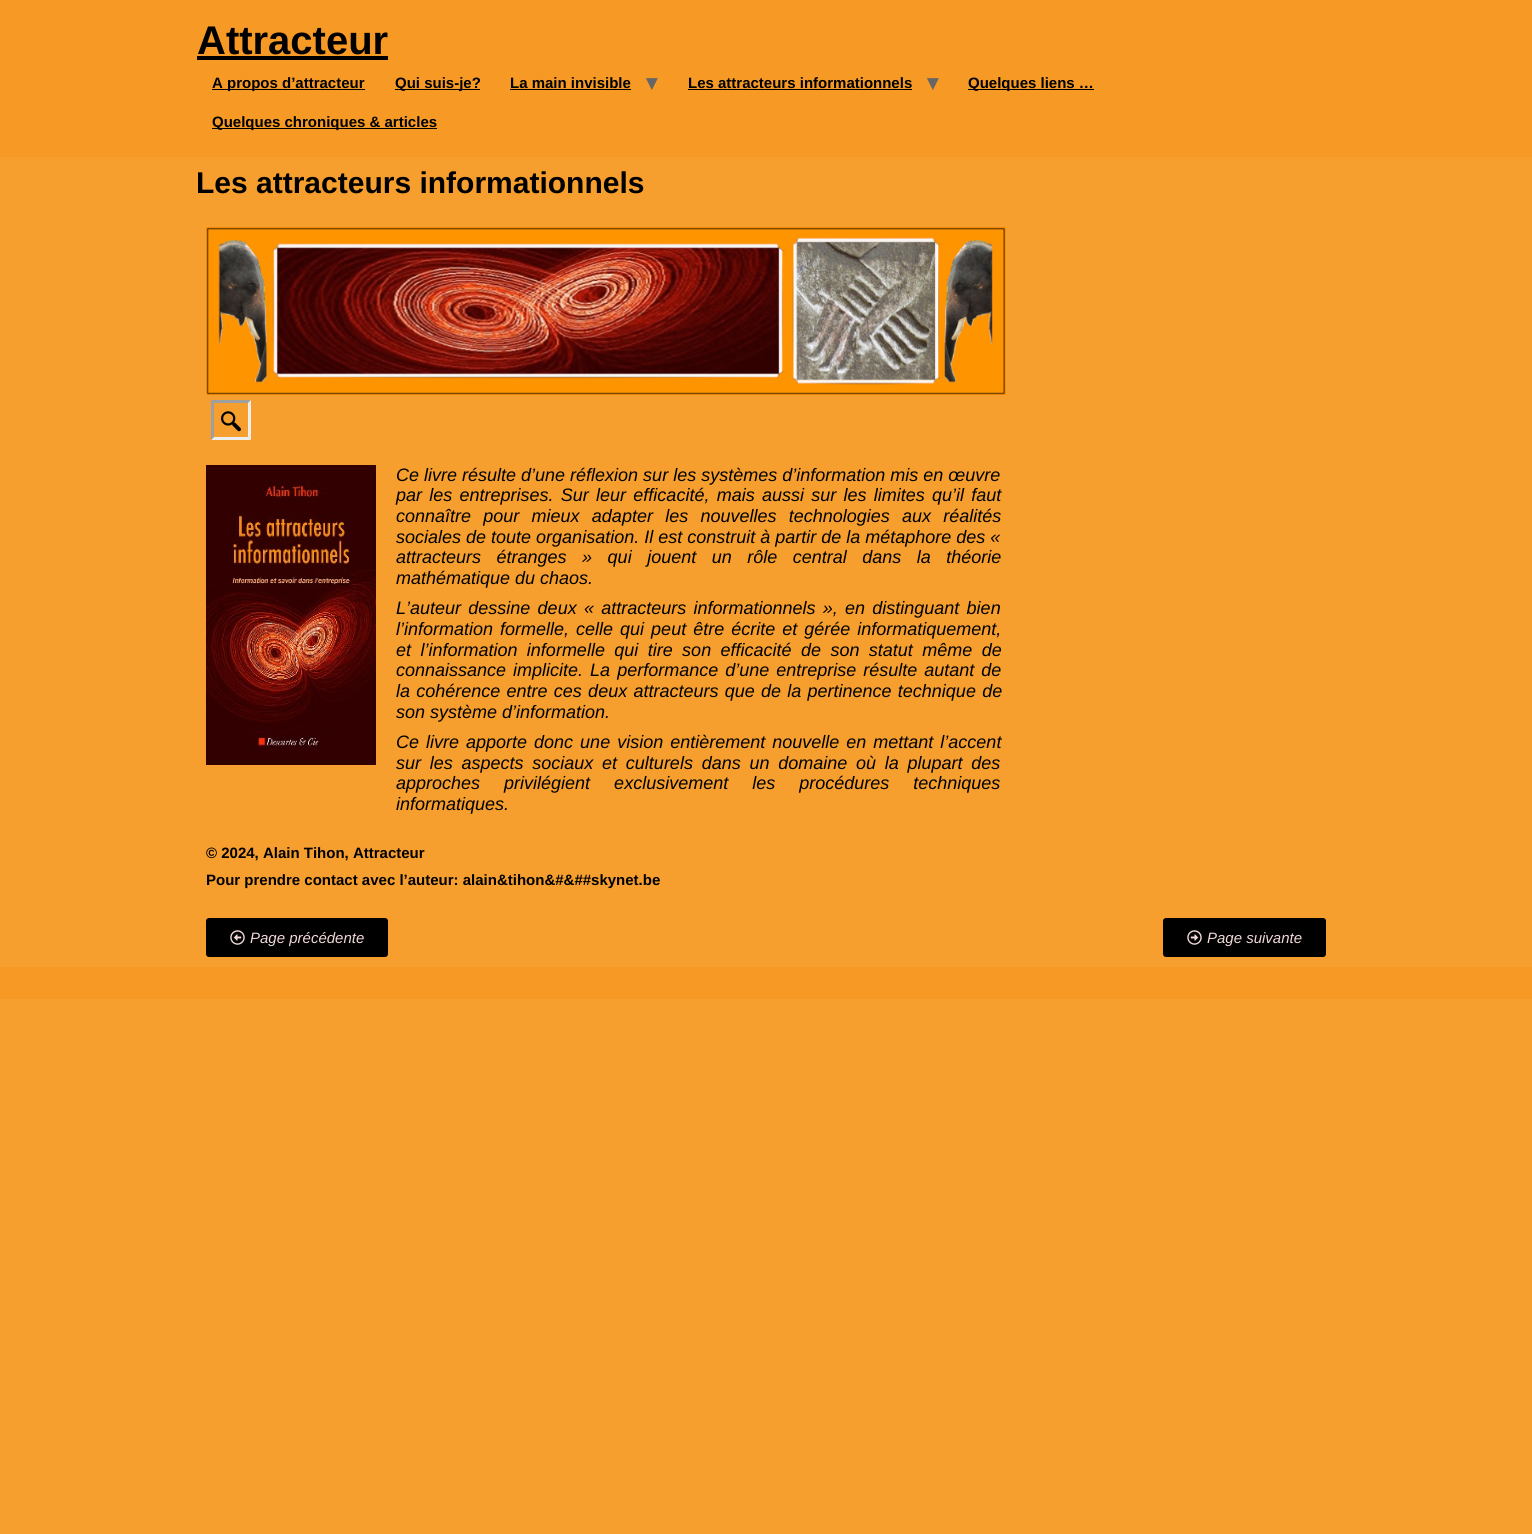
#include <cairo/cairo.h>
#include <math.h>
#include <stddef.h>

typedef struct { double x, y; const char *s; } line_t;
typedef struct { double x, y, w, h; unsigned color; } box_t;
static cairo_t *cr;

static void rgb(unsigned color)
{
	cairo_set_source_rgb(cr, (color >> 16) / 255.0, (color >> 8 & 255) / 255.0, (color & 255) / 255.0);
}

static void tracked(double x, double y, const char *s, double letter, double word)
{
	cairo_move_to(cr, x, y);
	while (*s) {
		char ch[5] = {0};
		int n = 0;
		do ch[n++] = *s++; while ((*s & 0xC0) == 0x80);
		cairo_show_text(cr, ch);
		cairo_rel_move_to(cr, letter + word * (*ch == ' '), 0);
	}
}

static void rrect(double x, double y, double w, double h, double r)
{
	cairo_new_sub_path(cr);
	cairo_arc(cr, x + w - r, y + h - r, r, 0, M_PI / 2);
	cairo_arc(cr, x + r, y + h - r, r, M_PI / 2, M_PI);
	cairo_arc(cr, x + r, y + r, r, M_PI, 1.5 * M_PI);
	cairo_arc(cr, x + w - r, y + r, r, 1.5 * M_PI, 2 * M_PI);
	cairo_close_path(cr);
}

static void image(const char *path, double x, double y, double w, double h)
{
	cairo_surface_t *image = cairo_image_surface_create_from_png(path);
	cairo_save(cr);
	cairo_set_source_surface(cr, image, x, y);
	cairo_rectangle(cr, x, y, w, h);
	cairo_fill(cr);
	cairo_restore(cr);
	cairo_surface_destroy(image);
}

int main(void) {
	cairo_surface_t *surface = cairo_image_surface_create(CAIRO_FORMAT_RGB24, 1532, 1534);
	cr = cairo_create(surface);
	cairo_font_options_t *options = cairo_font_options_create();
	cairo_font_options_set_hint_metrics(options, CAIRO_HINT_METRICS_OFF);
	cairo_font_options_set_hint_style(options, CAIRO_HINT_STYLE_NONE);
	cairo_set_font_options(cr, options);
	cairo_set_miter_limit(cr, 4);
	rgb(0xf69e2e);
	cairo_paint(cr);
	{
		static const box_t items[] = {
			{0, 0, 1532, 157, 0xf69a25},
			{197, 56, 191, 4, 0x000000},
			{212, 89, 153, 1, 0x000000},
			{395, 89, 85, 1, 0x000000},
			{510, 89, 121, 1, 0x000000},
			{688, 89, 224, 1, 0x000000},
			{968, 89, 126, 1, 0x000000},
			{212, 128, 225, 1, 0x000000},
		};
		for (size_t i = 0; i < sizeof items / sizeof *items; i++) {
			rgb(items[i].color);
			cairo_rectangle(cr, items[i].x, items[i].y, items[i].w, items[i].h);
			cairo_fill(cr);
		}
	}
	image("img/1.png", 206, 227, 800, 168);
	rgb(0x9f9f9f);
	cairo_new_path(cr);
	cairo_move_to(cr, 211, 400);
	cairo_line_to(cr, 251, 400);
	cairo_line_to(cr, 248, 403);
	cairo_line_to(cr, 214, 403);
	cairo_close_path(cr);
	cairo_fill(cr);
	rgb(0xeeeeee);
	cairo_new_path(cr);
	cairo_move_to(cr, 251, 400);
	cairo_line_to(cr, 251, 440);
	cairo_line_to(cr, 248, 437);
	cairo_line_to(cr, 248, 403);
	cairo_close_path(cr);
	cairo_fill(cr);
	cairo_new_path(cr);
	cairo_move_to(cr, 251, 440);
	cairo_line_to(cr, 211, 440);
	cairo_line_to(cr, 214, 437);
	cairo_line_to(cr, 248, 437);
	cairo_close_path(cr);
	cairo_fill(cr);
	rgb(0x9f9f9f);
	cairo_new_path(cr);
	cairo_move_to(cr, 211, 440);
	cairo_line_to(cr, 211, 400);
	cairo_line_to(cr, 214, 403);
	cairo_line_to(cr, 214, 437);
	cairo_close_path(cr);
	cairo_fill(cr);
	image("img/2.png", 221, 411, 20, 21);
	image("img/3.png", 206, 465, 170, 300);
	rgb(0x000000);
	rrect(206, 918, 182, 39, 3);
	cairo_fill(cr);
	image("img/4.png", 230, 930, 15, 15);
	rrect(1163, 918, 163, 39, 3);
	cairo_fill(cr);
	image("img/5.png", 1187, 930, 15, 15);
	rgb(0xf69a25);
	cairo_rectangle(cr, 0, 967, 1532, 32);
	cairo_fill(cr);
	cairo_select_font_face(cr, "Liberation Sans", CAIRO_FONT_SLANT_NORMAL, CAIRO_FONT_WEIGHT_BOLD);
	cairo_set_font_size(cr, 40);
	rgb(0x000000);
	cairo_move_to(cr, 197, 54);
	cairo_show_text(cr, "Attracteur");
	cairo_set_font_size(cr, 15);
	{
		static const line_t items[] = {
			{212, 88, "A propos d’attracteur"},
			{395, 88, "Qui suis-je?"},
			{510, 88, "La main invisible"},
		};
		for (size_t i = 0; i < sizeof items / sizeof *items; i++) {
			cairo_move_to(cr, items[i].x, items[i].y);
			cairo_show_text(cr, items[i].s);
		}
	}
	cairo_select_font_face(cr, "DejaVu Sans", CAIRO_FONT_SLANT_NORMAL, CAIRO_FONT_WEIGHT_BOLD);
	cairo_set_font_size(cr, 22);
	rgb(0x666666);
	cairo_move_to(cr, 646, 90);
	cairo_show_text(cr, "▾");
	cairo_select_font_face(cr, "Liberation Sans", CAIRO_FONT_SLANT_NORMAL, CAIRO_FONT_WEIGHT_BOLD);
	cairo_set_font_size(cr, 15);
	rgb(0x000000);
	cairo_move_to(cr, 688, 88);
	cairo_show_text(cr, "Les attracteurs informationnels");
	cairo_select_font_face(cr, "DejaVu Sans", CAIRO_FONT_SLANT_NORMAL, CAIRO_FONT_WEIGHT_BOLD);
	cairo_set_font_size(cr, 22);
	rgb(0x666666);
	cairo_move_to(cr, 927, 90);
	cairo_show_text(cr, "▾");
	cairo_select_font_face(cr, "Liberation Sans", CAIRO_FONT_SLANT_NORMAL, CAIRO_FONT_WEIGHT_BOLD);
	cairo_set_font_size(cr, 15);
	rgb(0x000000);
	cairo_move_to(cr, 968, 88);
	cairo_show_text(cr, "Quelques liens …");
	cairo_move_to(cr, 212, 127);
	cairo_show_text(cr, "Quelques chroniques & articles");
	cairo_set_font_size(cr, 30);
	cairo_move_to(cr, 196, 193);
	cairo_show_text(cr, "Les attracteurs informationnels");
	cairo_select_font_face(cr, "Liberation Sans", CAIRO_FONT_SLANT_ITALIC, CAIRO_FONT_WEIGHT_NORMAL);
	cairo_set_font_size(cr, 18);
	cairo_move_to(cr, 396, 481);
	cairo_show_text(cr, "Ce livre résulte d’une réflexion sur les systèmes d’information mis en œuvre");
	tracked(396, 501, "par les entreprises. Sur leur efficacité, mais aussi sur les limites qu’il faut", 0, 2.25);
	tracked(396, 522, "connaître pour mieux adapter les nouvelles technologies aux réalités", 0, 7.25);
	cairo_move_to(cr, 396, 543);
	cairo_show_text(cr, "sociales de toute organisation. Il est construit à partir de la métaphore des «");
	tracked(396, 563, "attracteurs étranges » qui jouent un rôle central dans la théorie", 0, 10.5);
	cairo_move_to(cr, 396, 584);
	cairo_show_text(cr, "mathématique du chaos.");
	tracked(396, 614, "L’auteur dessine deux « attracteurs informationnels », en distinguant bien", 0, 2.25);
	tracked(396, 635, "l’information formelle, celle qui peut être écrite et gérée informatiquement,", 0, 2);
	tracked(396, 656, "et l’information informelle qui tire son efficacité de son statut même de", 0, 4.4);
	tracked(396, 676, "connaissance implicite. La performance d’une entreprise résulte autant de", 0, 2);
	tracked(396, 697, "la cohérence entre ces deux attracteurs que de la pertinence technique de", 0, 1.25);
	cairo_move_to(cr, 396, 718);
	cairo_show_text(cr, "son système d’information.");
	tracked(396, 748, "Ce livre apporte donc une vision entièrement nouvelle en mettant l’accent", 0, 2);
	tracked(396, 769, "sur les aspects sociaux et culturels dans un domaine où la plupart des", 0, 3.75);
	tracked(396, 789, "approches privilégient exclusivement les procédures techniques", 0, 19);
	cairo_move_to(cr, 396, 810);
	cairo_show_text(cr, "informatiques.");
	cairo_select_font_face(cr, "Liberation Sans", CAIRO_FONT_SLANT_NORMAL, CAIRO_FONT_WEIGHT_BOLD);
	cairo_set_font_size(cr, 15);
	cairo_move_to(cr, 206, 858);
	cairo_show_text(cr, "© 2024, Alain Tihon, Attracteur");
	cairo_move_to(cr, 206, 885);
	cairo_show_text(cr, "Pour prendre contact avec l’auteur: alain&tihon&#&##skynet.be");
	cairo_select_font_face(cr, "Liberation Sans", CAIRO_FONT_SLANT_ITALIC, CAIRO_FONT_WEIGHT_NORMAL);
	rgb(0xf2d8d8);
	cairo_move_to(cr, 250, 943);
	cairo_show_text(cr, "Page précédente");
	cairo_move_to(cr, 1207, 943);
	cairo_show_text(cr, "Page suivante");
	cairo_surface_write_to_png(surface, "page.png");
	cairo_font_options_destroy(options);
	cairo_destroy(cr);
	cairo_surface_destroy(surface);
	return 0;
}
